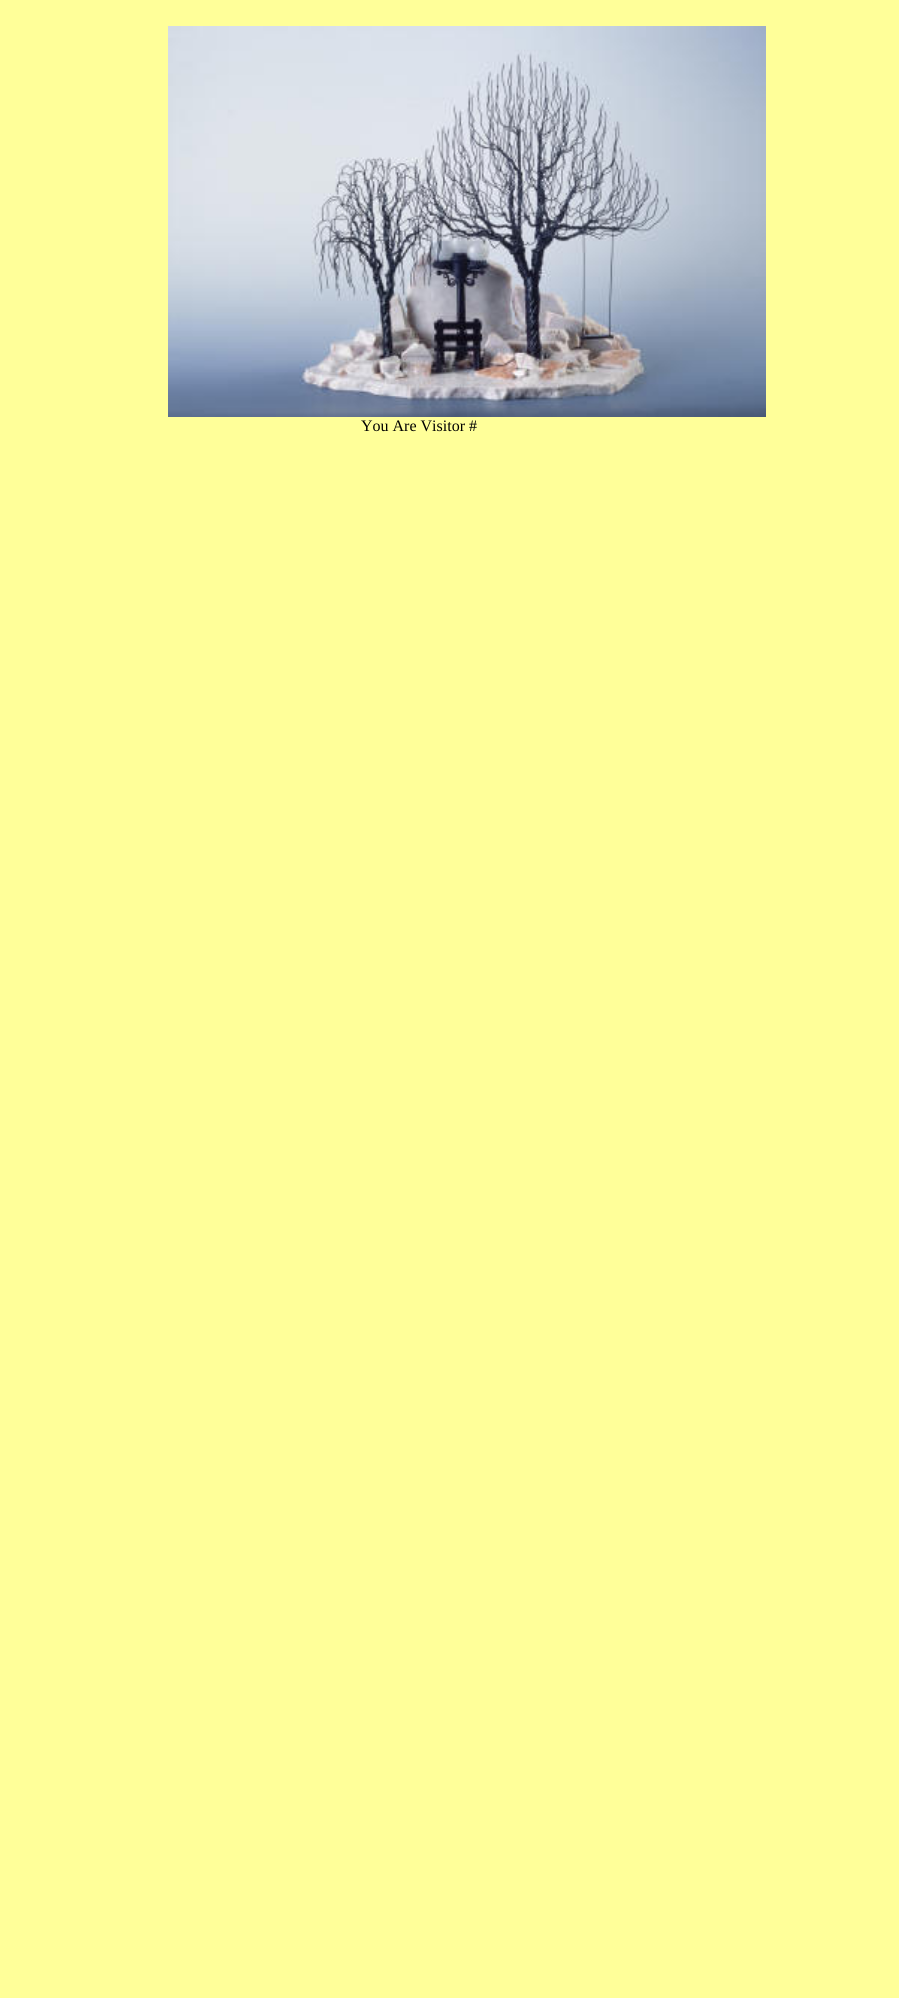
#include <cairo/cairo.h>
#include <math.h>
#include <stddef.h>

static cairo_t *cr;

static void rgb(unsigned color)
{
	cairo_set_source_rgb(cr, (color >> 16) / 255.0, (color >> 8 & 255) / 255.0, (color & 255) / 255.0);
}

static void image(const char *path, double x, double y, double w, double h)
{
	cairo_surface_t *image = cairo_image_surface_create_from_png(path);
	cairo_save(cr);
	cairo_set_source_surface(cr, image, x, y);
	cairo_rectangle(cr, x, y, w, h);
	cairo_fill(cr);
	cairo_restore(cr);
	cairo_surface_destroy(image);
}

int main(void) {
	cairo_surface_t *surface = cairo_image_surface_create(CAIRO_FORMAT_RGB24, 899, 1998);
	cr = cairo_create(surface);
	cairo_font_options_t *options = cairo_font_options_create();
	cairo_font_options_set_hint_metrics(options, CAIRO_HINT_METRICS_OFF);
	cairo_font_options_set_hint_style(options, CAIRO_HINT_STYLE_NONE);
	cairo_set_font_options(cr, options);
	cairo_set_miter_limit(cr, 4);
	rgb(0xffff99);
	cairo_paint(cr);
	image("img/1.png", 168, 26, 598, 391);
	cairo_select_font_face(cr, "Liberation Serif", CAIRO_FONT_SLANT_NORMAL, CAIRO_FONT_WEIGHT_NORMAL);
	cairo_set_font_size(cr, 16);
	rgb(0x000000);
	cairo_move_to(cr, 361, 431);
	cairo_show_text(cr, "You Are Visitor #");
	cairo_surface_write_to_png(surface, "page.png");
	cairo_font_options_destroy(options);
	cairo_destroy(cr);
	cairo_surface_destroy(surface);
	return 0;
}
